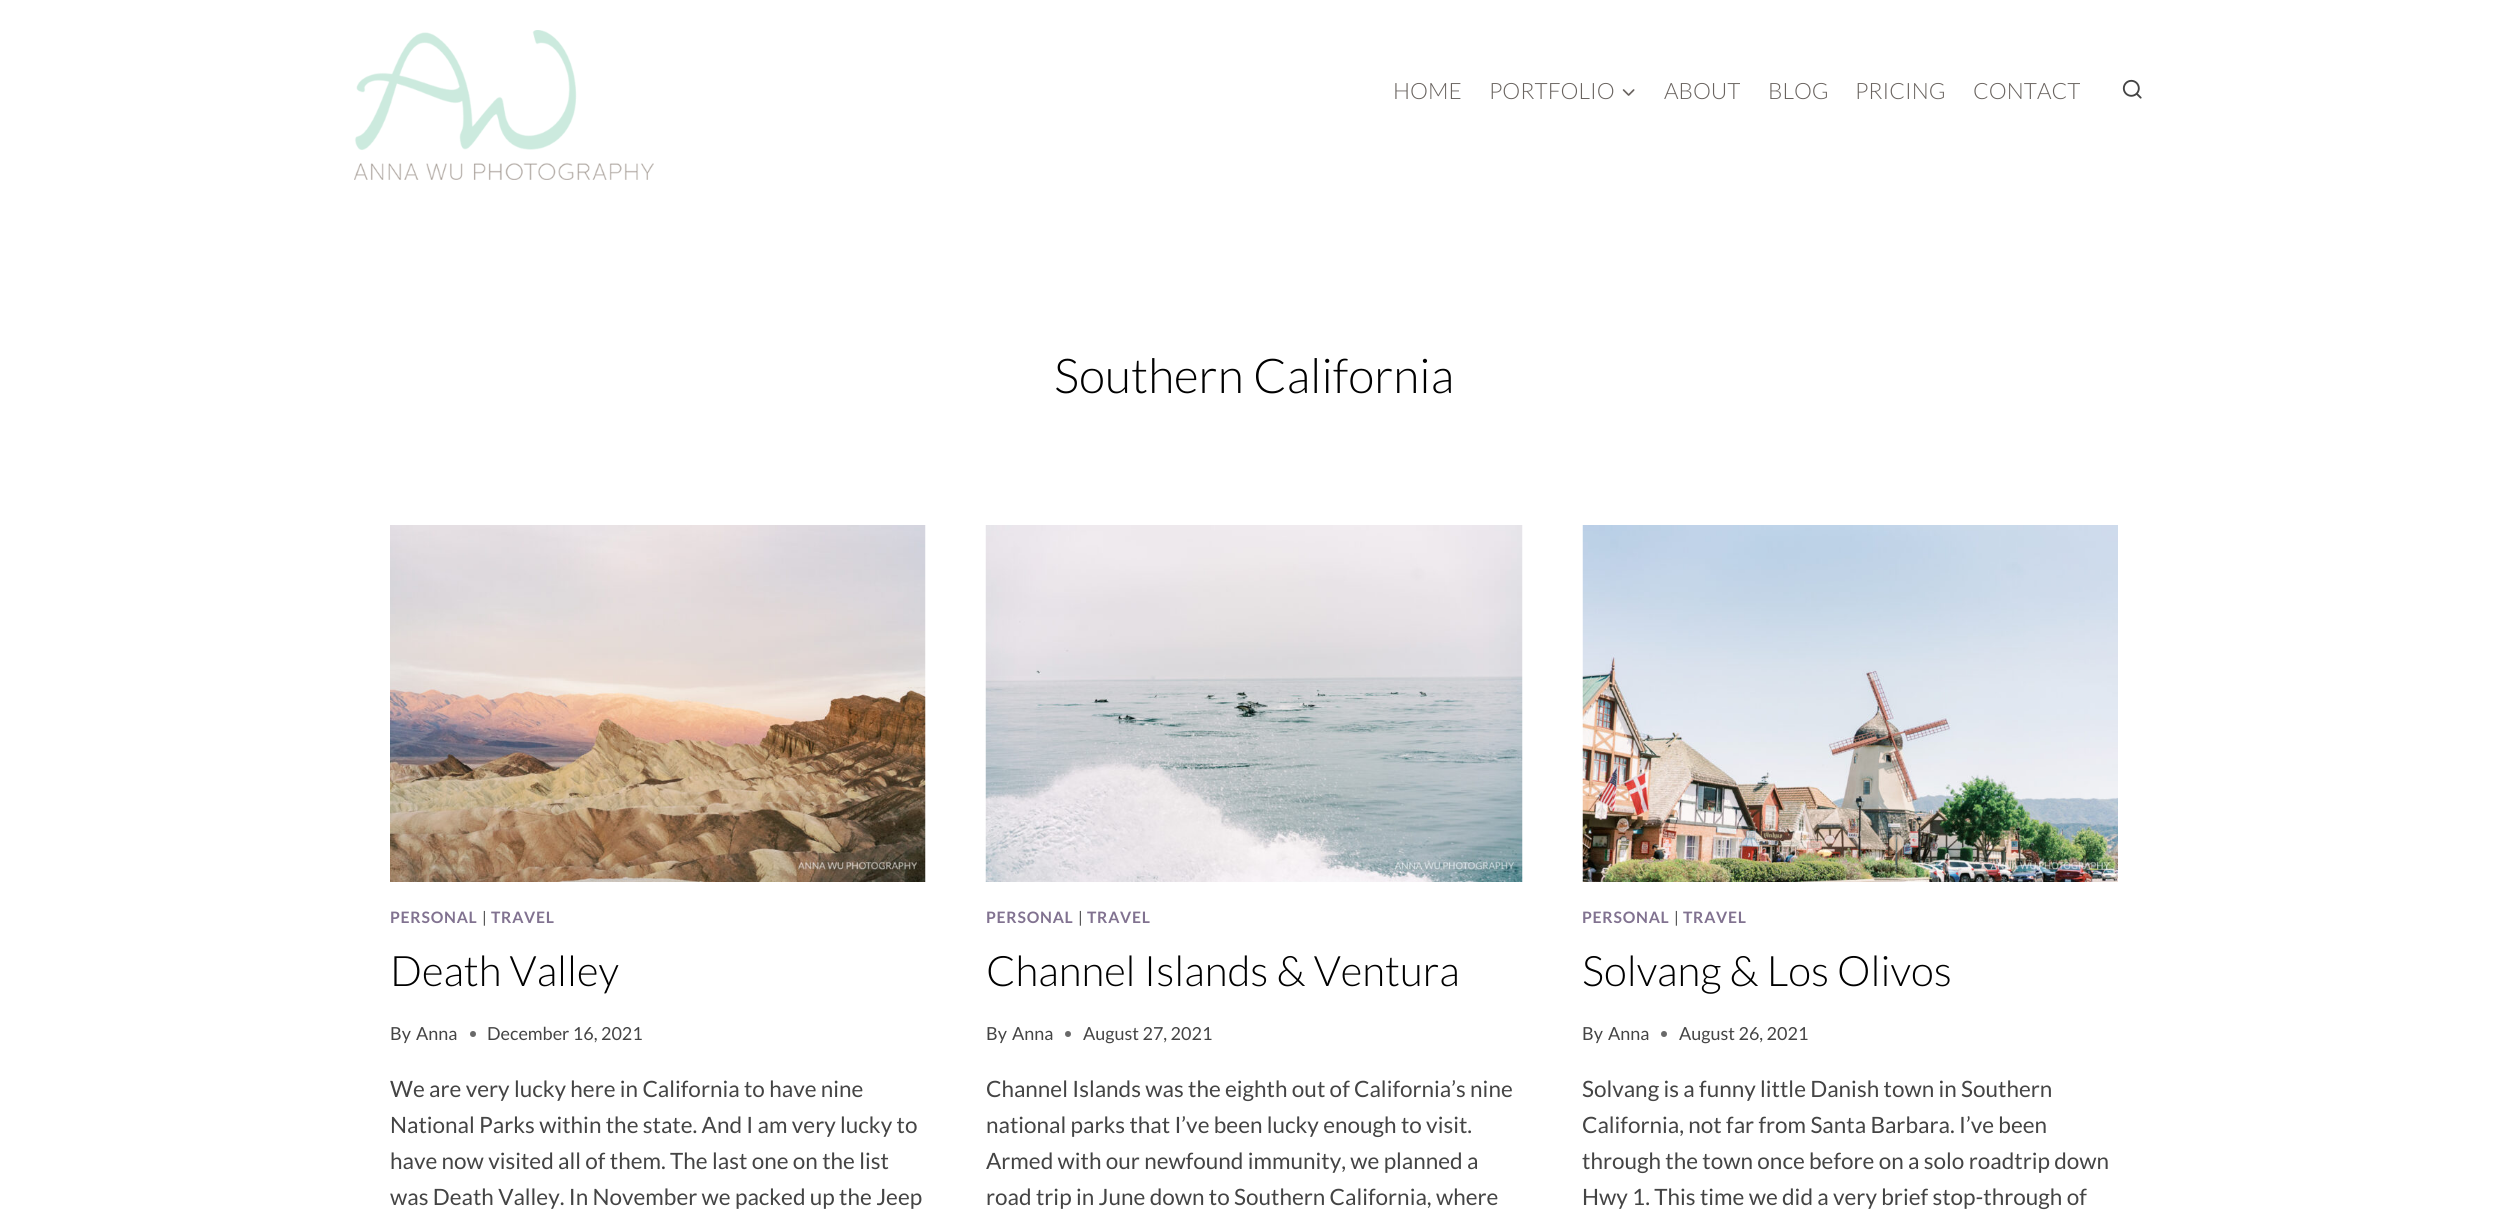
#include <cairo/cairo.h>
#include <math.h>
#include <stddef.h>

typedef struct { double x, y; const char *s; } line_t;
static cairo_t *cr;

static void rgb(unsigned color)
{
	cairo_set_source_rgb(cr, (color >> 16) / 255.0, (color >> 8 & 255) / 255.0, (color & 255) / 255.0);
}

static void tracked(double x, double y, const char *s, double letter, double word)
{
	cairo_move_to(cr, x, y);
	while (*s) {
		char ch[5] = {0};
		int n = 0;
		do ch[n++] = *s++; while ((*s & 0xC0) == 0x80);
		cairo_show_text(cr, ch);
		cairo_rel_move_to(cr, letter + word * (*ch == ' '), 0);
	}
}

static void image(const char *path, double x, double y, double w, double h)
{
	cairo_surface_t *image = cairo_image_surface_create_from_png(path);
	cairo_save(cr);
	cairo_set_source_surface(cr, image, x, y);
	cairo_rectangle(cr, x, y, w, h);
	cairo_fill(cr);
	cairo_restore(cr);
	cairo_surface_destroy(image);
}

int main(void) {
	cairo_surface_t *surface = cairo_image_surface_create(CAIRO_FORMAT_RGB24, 2508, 1231);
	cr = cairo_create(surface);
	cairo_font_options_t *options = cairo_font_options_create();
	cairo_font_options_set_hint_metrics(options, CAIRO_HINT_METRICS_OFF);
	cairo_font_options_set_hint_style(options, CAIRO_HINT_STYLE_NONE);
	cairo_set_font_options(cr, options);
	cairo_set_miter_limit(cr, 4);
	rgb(0xffffff);
	cairo_paint(cr);
	image("img/1.png", 354, 30, 300, 150);
	image("img/2.png", 1622, 89, 13, 7);
	image("img/3.png", 2122, 79, 20, 20);
	image("img/4.png", 390, 525, 536, 357);
	rgb(0x696969);
	cairo_arc(cr, 473, 1034, 3, 0, 2 * M_PI);
	cairo_fill(cr);
	image("img/5.png", 985, 525, 538, 357);
	cairo_arc(cr, 1068, 1034, 3, 0, 2 * M_PI);
	cairo_fill(cr);
	image("img/6.png", 1582, 525, 536, 357);
	cairo_arc(cr, 1664, 1034, 3, 0, 2 * M_PI);
	cairo_fill(cr);
	cairo_select_font_face(cr, "Lato Light", CAIRO_FONT_SLANT_NORMAL, CAIRO_FONT_WEIGHT_NORMAL);
	cairo_set_font_size(cr, 22.5);
	rgb(0x69635f);
	{
		static const line_t items[] = {
			{1393, 99, "HOME"},
			{1489, 99, "PORTFOLIO"},
			{1664, 99, "ABOUT"},
			{1768, 99, "BLOG"},
			{1855, 99, "PRICING"},
			{1973, 99, "CONTACT"},
		};
		for (size_t i = 0; i < sizeof items / sizeof *items; i++) {
			cairo_move_to(cr, items[i].x, items[i].y);
			cairo_show_text(cr, items[i].s);
		}
	}
	cairo_set_font_size(cr, 48);
	rgb(0x000000);
	cairo_move_to(cr, 1054, 393);
	cairo_show_text(cr, "Southern California");
	cairo_select_font_face(cr, "Lato", CAIRO_FONT_SLANT_NORMAL, CAIRO_FONT_WEIGHT_BOLD);
	cairo_set_font_size(cr, 15.75);
	rgb(0x817290);
	tracked(390, 923, "PERSONAL", 0.75, 0);
	cairo_select_font_face(cr, "Lato", CAIRO_FONT_SLANT_NORMAL, CAIRO_FONT_WEIGHT_NORMAL);
	rgb(0x444444);
	tracked(482, 923, "|", 0.75, 0);
	cairo_select_font_face(cr, "Lato", CAIRO_FONT_SLANT_NORMAL, CAIRO_FONT_WEIGHT_BOLD);
	rgb(0x817290);
	tracked(491, 923, "TRAVEL", 0.75, 0);
	cairo_select_font_face(cr, "Lato Light", CAIRO_FONT_SLANT_NORMAL, CAIRO_FONT_WEIGHT_NORMAL);
	cairo_set_font_size(cr, 42);
	rgb(0x000000);
	cairo_move_to(cr, 390, 986);
	cairo_show_text(cr, "Death Valley");
	cairo_select_font_face(cr, "Lato", CAIRO_FONT_SLANT_NORMAL, CAIRO_FONT_WEIGHT_NORMAL);
	cairo_set_font_size(cr, 18);
	rgb(0x444444);
	{
		static const line_t items[] = {
			{390, 1040, "By"},
			{416, 1040, "Anna"},
			{487, 1040, "December 16, 2021"},
		};
		for (size_t i = 0; i < sizeof items / sizeof *items; i++) {
			cairo_move_to(cr, items[i].x, items[i].y);
			cairo_show_text(cr, items[i].s);
		}
	}
	cairo_set_font_size(cr, 22.5);
	{
		static const line_t items[] = {
			{390, 1097, "We are very lucky here in California to have nine"},
			{390, 1133, "National Parks within the state. And I am very lucky to"},
			{390, 1169, "have now visited all of them. The last one on the list"},
			{390, 1205, "was Death Valley. In November we packed up the Jeep"},
		};
		for (size_t i = 0; i < sizeof items / sizeof *items; i++) {
			cairo_move_to(cr, items[i].x, items[i].y);
			cairo_show_text(cr, items[i].s);
		}
	}
	cairo_select_font_face(cr, "Lato", CAIRO_FONT_SLANT_NORMAL, CAIRO_FONT_WEIGHT_BOLD);
	cairo_set_font_size(cr, 15.75);
	rgb(0x817290);
	tracked(986, 923, "PERSONAL", 0.75, 0);
	cairo_select_font_face(cr, "Lato", CAIRO_FONT_SLANT_NORMAL, CAIRO_FONT_WEIGHT_NORMAL);
	rgb(0x444444);
	tracked(1078, 923, "|", 0.75, 0);
	cairo_select_font_face(cr, "Lato", CAIRO_FONT_SLANT_NORMAL, CAIRO_FONT_WEIGHT_BOLD);
	rgb(0x817290);
	tracked(1087, 923, "TRAVEL", 0.75, 0);
	cairo_select_font_face(cr, "Lato Light", CAIRO_FONT_SLANT_NORMAL, CAIRO_FONT_WEIGHT_NORMAL);
	cairo_set_font_size(cr, 42);
	rgb(0x000000);
	cairo_move_to(cr, 986, 986);
	cairo_show_text(cr, "Channel Islands & Ventura");
	cairo_select_font_face(cr, "Lato", CAIRO_FONT_SLANT_NORMAL, CAIRO_FONT_WEIGHT_NORMAL);
	cairo_set_font_size(cr, 18);
	rgb(0x444444);
	{
		static const line_t items[] = {
			{986, 1040, "By"},
			{1012, 1040, "Anna"},
			{1083, 1040, "August 27, 2021"},
		};
		for (size_t i = 0; i < sizeof items / sizeof *items; i++) {
			cairo_move_to(cr, items[i].x, items[i].y);
			cairo_show_text(cr, items[i].s);
		}
	}
	cairo_set_font_size(cr, 22.5);
	{
		static const line_t items[] = {
			{986, 1097, "Channel Islands was the eighth out of California’s nine"},
			{986, 1133, "national parks that I’ve been lucky enough to visit."},
			{986, 1169, "Armed with our newfound immunity, we planned a"},
			{986, 1205, "road trip in June down to Southern California, where"},
		};
		for (size_t i = 0; i < sizeof items / sizeof *items; i++) {
			cairo_move_to(cr, items[i].x, items[i].y);
			cairo_show_text(cr, items[i].s);
		}
	}
	cairo_select_font_face(cr, "Lato", CAIRO_FONT_SLANT_NORMAL, CAIRO_FONT_WEIGHT_BOLD);
	cairo_set_font_size(cr, 15.75);
	rgb(0x817290);
	tracked(1582, 923, "PERSONAL", 0.75, 0);
	cairo_select_font_face(cr, "Lato", CAIRO_FONT_SLANT_NORMAL, CAIRO_FONT_WEIGHT_NORMAL);
	rgb(0x444444);
	tracked(1674, 923, "|", 0.75, 0);
	cairo_select_font_face(cr, "Lato", CAIRO_FONT_SLANT_NORMAL, CAIRO_FONT_WEIGHT_BOLD);
	rgb(0x817290);
	tracked(1683, 923, "TRAVEL", 0.75, 0);
	cairo_select_font_face(cr, "Lato Light", CAIRO_FONT_SLANT_NORMAL, CAIRO_FONT_WEIGHT_NORMAL);
	cairo_set_font_size(cr, 42);
	rgb(0x000000);
	cairo_move_to(cr, 1582, 986);
	cairo_show_text(cr, "Solvang & Los Olivos");
	cairo_select_font_face(cr, "Lato", CAIRO_FONT_SLANT_NORMAL, CAIRO_FONT_WEIGHT_NORMAL);
	cairo_set_font_size(cr, 18);
	rgb(0x444444);
	{
		static const line_t items[] = {
			{1582, 1040, "By"},
			{1608, 1040, "Anna"},
			{1679, 1040, "August 26, 2021"},
		};
		for (size_t i = 0; i < sizeof items / sizeof *items; i++) {
			cairo_move_to(cr, items[i].x, items[i].y);
			cairo_show_text(cr, items[i].s);
		}
	}
	cairo_set_font_size(cr, 22.5);
	{
		static const line_t items[] = {
			{1582, 1097, "Solvang is a funny little Danish town in Southern"},
			{1582, 1133, "California, not far from Santa Barbara. I’ve been"},
			{1582, 1169, "through the town once before on a solo roadtrip down"},
			{1582, 1205, "Hwy 1. This time we did a very brief stop-through of"},
		};
		for (size_t i = 0; i < sizeof items / sizeof *items; i++) {
			cairo_move_to(cr, items[i].x, items[i].y);
			cairo_show_text(cr, items[i].s);
		}
	}
	cairo_surface_write_to_png(surface, "page.png");
	cairo_font_options_destroy(options);
	cairo_destroy(cr);
	cairo_surface_destroy(surface);
	return 0;
}
